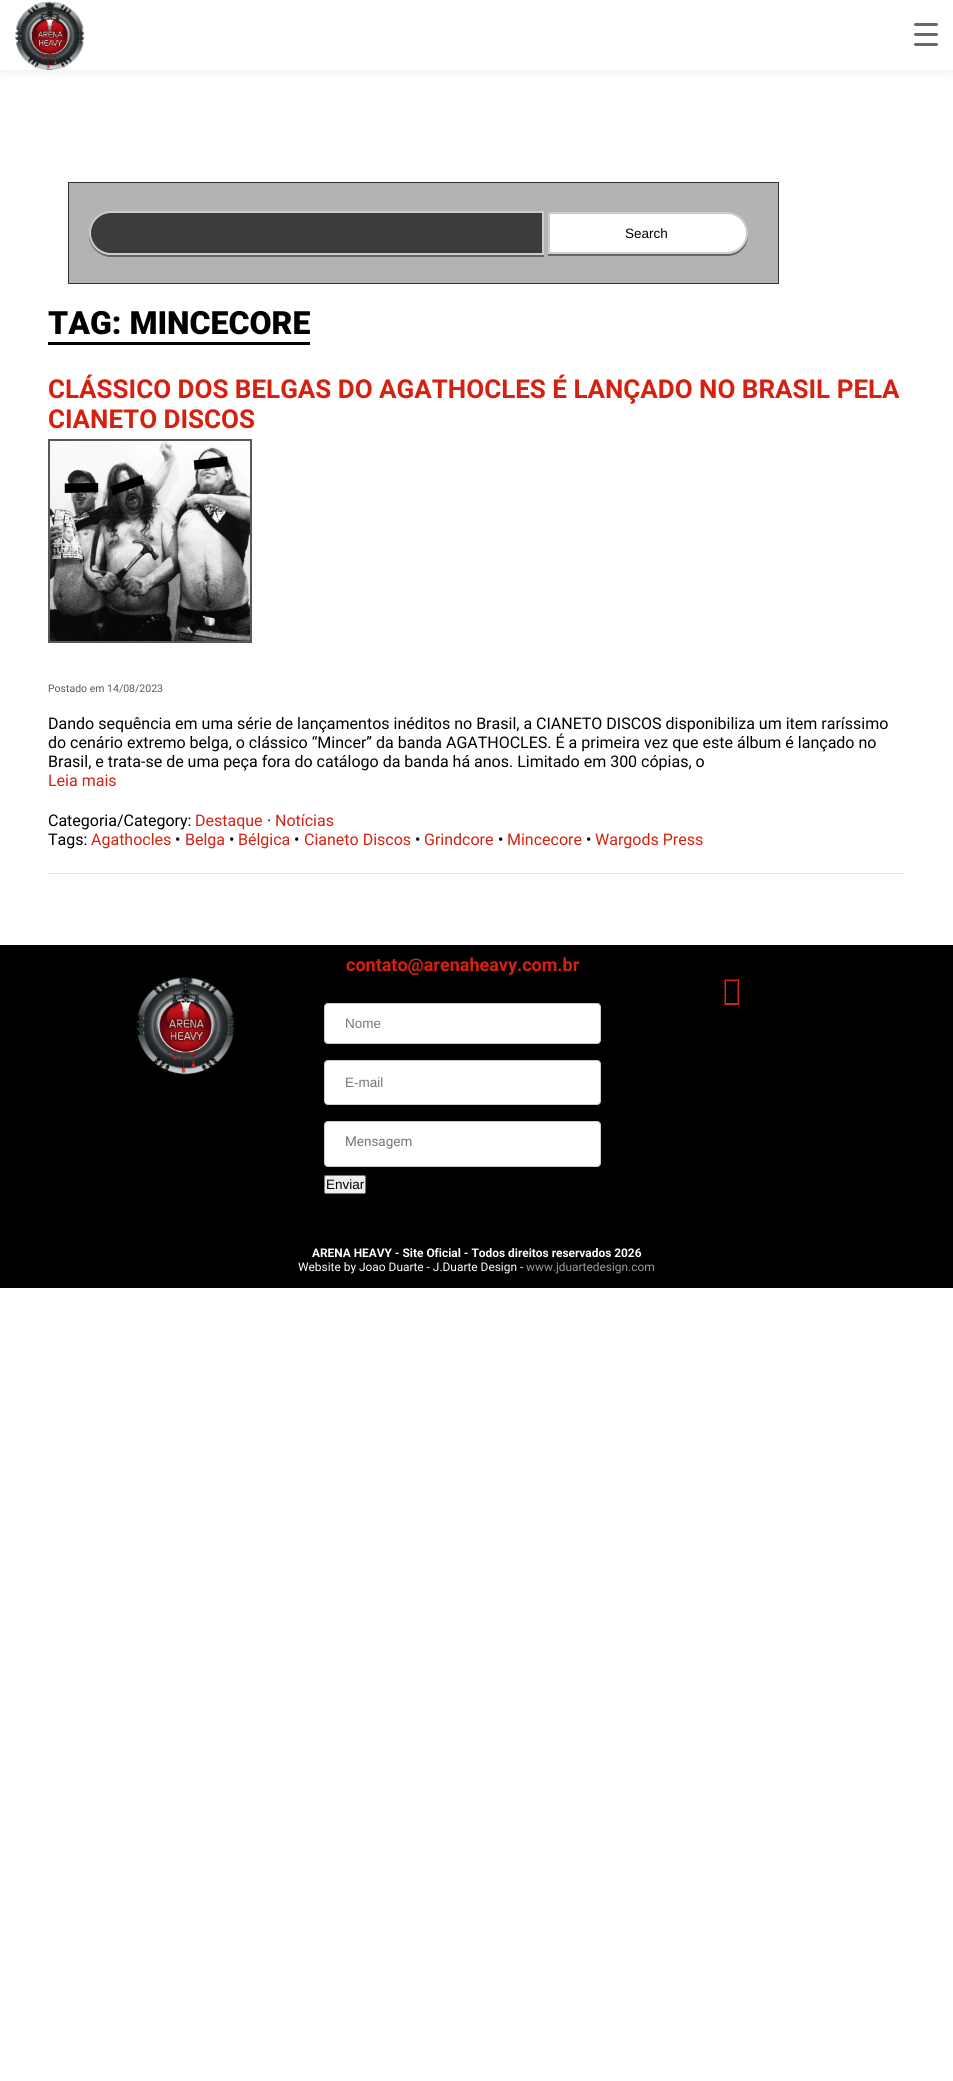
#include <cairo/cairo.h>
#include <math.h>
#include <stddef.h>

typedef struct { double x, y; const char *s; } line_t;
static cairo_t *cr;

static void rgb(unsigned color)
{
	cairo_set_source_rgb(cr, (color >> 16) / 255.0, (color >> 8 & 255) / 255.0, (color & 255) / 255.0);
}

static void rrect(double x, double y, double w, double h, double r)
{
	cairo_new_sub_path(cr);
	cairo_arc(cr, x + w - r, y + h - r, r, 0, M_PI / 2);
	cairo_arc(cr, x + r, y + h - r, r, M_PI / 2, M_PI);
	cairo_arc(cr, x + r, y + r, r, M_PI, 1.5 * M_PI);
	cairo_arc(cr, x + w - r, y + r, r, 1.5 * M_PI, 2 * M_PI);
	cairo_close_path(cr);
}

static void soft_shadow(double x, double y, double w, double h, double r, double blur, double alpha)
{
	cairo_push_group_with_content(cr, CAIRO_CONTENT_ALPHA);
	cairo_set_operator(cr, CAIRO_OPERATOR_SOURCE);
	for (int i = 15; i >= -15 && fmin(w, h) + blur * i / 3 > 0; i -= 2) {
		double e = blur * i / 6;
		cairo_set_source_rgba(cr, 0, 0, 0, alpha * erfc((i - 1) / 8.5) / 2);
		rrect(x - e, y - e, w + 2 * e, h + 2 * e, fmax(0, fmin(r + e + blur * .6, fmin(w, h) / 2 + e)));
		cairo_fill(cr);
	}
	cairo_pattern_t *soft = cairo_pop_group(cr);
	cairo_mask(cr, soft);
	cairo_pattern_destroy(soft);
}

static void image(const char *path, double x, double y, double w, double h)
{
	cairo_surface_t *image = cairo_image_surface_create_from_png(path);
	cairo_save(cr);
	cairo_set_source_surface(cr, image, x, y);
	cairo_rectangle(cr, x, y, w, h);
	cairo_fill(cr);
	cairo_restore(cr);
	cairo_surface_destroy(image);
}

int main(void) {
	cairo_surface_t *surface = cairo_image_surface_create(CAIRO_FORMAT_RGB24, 953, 2081);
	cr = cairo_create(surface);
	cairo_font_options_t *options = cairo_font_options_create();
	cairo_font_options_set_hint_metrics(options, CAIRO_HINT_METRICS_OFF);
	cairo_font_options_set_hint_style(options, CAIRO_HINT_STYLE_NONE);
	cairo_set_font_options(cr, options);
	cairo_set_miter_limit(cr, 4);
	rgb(0xffffff);
	cairo_paint(cr);
	rgb(0x000000);
	soft_shadow(0, 0, 953, 70, 0, 5, 0.1);
	rgb(0xffffff);
	cairo_rectangle(cr, 0, 0, 953, 70);
	cairo_fill(cr);
	image("img/1.png", 15, 1, 70, 69);
	rgb(0x686868);
	rrect(914, 33, 24, 3, 1.5);
	cairo_fill(cr);
	rrect(914, 23, 24, 3, 1.5);
	cairo_fill(cr);
	rrect(914, 43, 24, 3, 1.5);
	cairo_fill(cr);
	rgb(0xb3b3b3);
	cairo_rectangle(cr, 68.5, 182.5, 710, 101);
	cairo_fill_preserve(cr);
	rgb(0x333333);
	cairo_set_line_width(cr, 1);
	cairo_stroke(cr);
	rgb(0x666666);
	cairo_new_path(cr);
	cairo_move_to(cr, 89, 234);
	cairo_curve_to(cr, 88, 246, 99, 257, 111, 257);
	cairo_line_to(cr, 544, 257);
	cairo_line_to(cr, 544, 255);
	cairo_line_to(cr, 111, 255);
	cairo_curve_to(cr, 99, 255, 90, 246, 89, 234);
	cairo_close_path(cr);
	cairo_fill(cr);
	rgb(0x3c3c3c);
	cairo_new_path(cr);
	cairo_move_to(cr, 111, 212);
	cairo_line_to(cr, 543, 212);
	cairo_line_to(cr, 543, 254);
	cairo_line_to(cr, 111, 254);
	cairo_curve_to(cr, 99.5, 254, 90, 244.5, 90, 233);
	cairo_curve_to(cr, 90, 221.5, 99.5, 212, 111, 212);
	cairo_close_path(cr);
	cairo_fill_preserve(cr);
	rgb(0xcccccc);
	cairo_set_line_width(cr, 2);
	cairo_stroke(cr);
	rgb(0x666666);
	cairo_new_path(cr);
	cairo_move_to(cr, 548, 254);
	cairo_line_to(cr, 548, 256);
	cairo_line_to(cr, 727, 256);
	cairo_curve_to(cr, 739, 256, 748, 247, 748, 235);
	cairo_line_to(cr, 748, 234);
	cairo_curve_to(cr, 747, 245, 738, 254, 727, 254);
	cairo_close_path(cr);
	cairo_fill(cr);
	rgb(0xffffff);
	cairo_new_path(cr);
	cairo_move_to(cr, 549, 213);
	cairo_line_to(cr, 727, 213);
	cairo_curve_to(cr, 738, 213, 747, 222, 747, 233);
	cairo_curve_to(cr, 747, 244, 738, 253, 727, 253);
	cairo_line_to(cr, 549, 253);
	cairo_close_path(cr);
	cairo_fill_preserve(cr);
	rgb(0xcccccc);
	cairo_stroke(cr);
	rgb(0x000000);
	cairo_rectangle(cr, 48, 342, 262, 3);
	cairo_fill(cr);
	cairo_rectangle(cr, 49, 440, 202, 202);
	rgb(0x5f564d);
	cairo_stroke(cr);
	image("img/2.png", 50, 441, 200, 200);
	rgb(0xe4e4e4);
	cairo_rectangle(cr, 48, 873, 857, 1);
	cairo_fill(cr);
	rgb(0x000000);
	cairo_rectangle(cr, 0, 945, 953, 343);
	cairo_fill(cr);
	image("img/3.png", 136, 977, 100, 98);
	rgb(0xffffff);
	rrect(324.5, 1003.5, 276, 40, 3.5);
	cairo_fill_preserve(cr);
	rgb(0xcccccc);
	cairo_set_line_width(cr, 1);
	cairo_stroke(cr);
	rgb(0xffffff);
	rrect(324.5, 1060.5, 276, 44, 3.5);
	cairo_fill_preserve(cr);
	rgb(0xcccccc);
	cairo_stroke(cr);
	rgb(0xffffff);
	rrect(324.5, 1121.5, 276, 45, 3.5);
	cairo_fill_preserve(cr);
	rgb(0xcccccc);
	cairo_stroke(cr);
	rgb(0xefefef);
	rrect(324.5, 1175.5, 41, 18, 1.5);
	cairo_fill_preserve(cr);
	rgb(0x767676);
	cairo_stroke(cr);
	rgb(0xd62110);
	cairo_new_path(cr);
	cairo_move_to(cr, 724.5, 1005);
	cairo_line_to(cr, 724.5, 979.5);
	cairo_line_to(cr, 739, 979.5);
	cairo_line_to(cr, 739, 1005);
	cairo_close_path(cr);
	cairo_move_to(cr, 726, 1003);
	cairo_line_to(cr, 737.5, 1003);
	cairo_line_to(cr, 737.5, 981);
	cairo_line_to(cr, 726, 981);
	cairo_close_path(cr);
	cairo_fill(cr);
	cairo_select_font_face(cr, "Liberation Sans", CAIRO_FONT_SLANT_NORMAL, CAIRO_FONT_WEIGHT_NORMAL);
	cairo_set_font_size(cr, 13.5);
	rgb(0x000000);
	cairo_move_to(cr, 625, 238);
	cairo_show_text(cr, "Search");
	cairo_select_font_face(cr, "Roboto Black", CAIRO_FONT_SLANT_NORMAL, CAIRO_FONT_WEIGHT_NORMAL);
	cairo_set_font_size(cr, 32);
	cairo_move_to(cr, 48, 334);
	cairo_show_text(cr, "TAG: MINCECORE");
	cairo_select_font_face(cr, "Roboto", CAIRO_FONT_SLANT_NORMAL, CAIRO_FONT_WEIGHT_BOLD);
	cairo_set_font_size(cr, 26);
	rgb(0xd62110);
	cairo_move_to(cr, 48, 398);
	cairo_show_text(cr, "CLÁSSICO DOS BELGAS DO AGATHOCLES É LANÇADO NO BRASIL PELA");
	cairo_move_to(cr, 48, 428);
	cairo_show_text(cr, "CIANETO DISCOS");
	cairo_select_font_face(cr, "Roboto", CAIRO_FONT_SLANT_NORMAL, CAIRO_FONT_WEIGHT_NORMAL);
	cairo_set_font_size(cr, 10.5);
	rgb(0x5a5a5a);
	cairo_move_to(cr, 48, 692);
	cairo_show_text(cr, "Postado em 14/08/2023");
	cairo_set_font_size(cr, 16);
	rgb(0x000000);
	{
		static const line_t items[] = {
			{48, 729, "Dando sequência em uma série de lançamentos inéditos no Brasil, a CIANETO DISCOS disponibiliza um item raríssimo"},
			{48, 748, "do cenário extremo belga, o clássico “Mincer” da banda AGATHOCLES. É a primeira vez que este álbum é lançado no"},
			{48, 767, "Brasil, e trata-se de uma peça fora do catálogo da banda há anos. Limitado em 300 cópias, o"},
		};
		for (size_t i = 0; i < sizeof items / sizeof *items; i++) {
			cairo_move_to(cr, items[i].x, items[i].y);
			cairo_show_text(cr, items[i].s);
		}
	}
	rgb(0xd62110);
	cairo_move_to(cr, 48, 786);
	cairo_show_text(cr, "Leia mais");
	rgb(0x000000);
	cairo_move_to(cr, 48, 826);
	cairo_show_text(cr, "Categoria/Category:");
	rgb(0xd62110);
	cairo_move_to(cr, 195, 826);
	cairo_show_text(cr, "Destaque");
	rgb(0x000000);
	cairo_move_to(cr, 267, 826);
	cairo_show_text(cr, "·");
	rgb(0xd62110);
	cairo_move_to(cr, 275, 826);
	cairo_show_text(cr, "Notícias");
	rgb(0x000000);
	cairo_move_to(cr, 48, 845);
	cairo_show_text(cr, "Tags:");
	rgb(0xd62110);
	cairo_move_to(cr, 91, 845);
	cairo_show_text(cr, "Agathocles");
	rgb(0x000000);
	cairo_move_to(cr, 175, 845);
	cairo_show_text(cr, "•");
	rgb(0xd62110);
	cairo_move_to(cr, 185, 845);
	cairo_show_text(cr, "Belga");
	rgb(0x000000);
	cairo_move_to(cr, 229, 845);
	cairo_show_text(cr, "•");
	rgb(0xd62110);
	cairo_move_to(cr, 238, 845);
	cairo_show_text(cr, "Bélgica");
	rgb(0x000000);
	cairo_move_to(cr, 294, 845);
	cairo_show_text(cr, "•");
	rgb(0xd62110);
	cairo_move_to(cr, 304, 845);
	cairo_show_text(cr, "Cianeto Discos");
	rgb(0x000000);
	cairo_move_to(cr, 415, 845);
	cairo_show_text(cr, "•");
	rgb(0xd62110);
	cairo_move_to(cr, 424, 845);
	cairo_show_text(cr, "Grindcore");
	rgb(0x000000);
	cairo_move_to(cr, 498, 845);
	cairo_show_text(cr, "•");
	rgb(0xd62110);
	cairo_move_to(cr, 507, 845);
	cairo_show_text(cr, "Mincecore");
	rgb(0x000000);
	cairo_move_to(cr, 586, 845);
	cairo_show_text(cr, "•");
	rgb(0xd62110);
	cairo_move_to(cr, 595, 845);
	cairo_show_text(cr, "Wargods Press");
	cairo_select_font_face(cr, "Roboto", CAIRO_FONT_SLANT_NORMAL, CAIRO_FONT_WEIGHT_BOLD);
	cairo_set_font_size(cr, 18);
	cairo_move_to(cr, 346, 971);
	cairo_show_text(cr, "contato@arenaheavy.com.br");
	cairo_select_font_face(cr, "Liberation Sans", CAIRO_FONT_SLANT_NORMAL, CAIRO_FONT_WEIGHT_NORMAL);
	cairo_set_font_size(cr, 13.5);
	rgb(0x757575);
	cairo_move_to(cr, 345, 1028);
	cairo_show_text(cr, "Nome");
	cairo_move_to(cr, 345, 1087);
	cairo_show_text(cr, "E-mail");
	cairo_select_font_face(cr, "Roboto", CAIRO_FONT_SLANT_NORMAL, CAIRO_FONT_WEIGHT_NORMAL);
	cairo_move_to(cr, 345, 1146);
	cairo_show_text(cr, "Mensagem");
	cairo_select_font_face(cr, "Liberation Sans", CAIRO_FONT_SLANT_NORMAL, CAIRO_FONT_WEIGHT_NORMAL);
	rgb(0x000000);
	cairo_move_to(cr, 326, 1189);
	cairo_show_text(cr, "Enviar");
	cairo_select_font_face(cr, "Roboto", CAIRO_FONT_SLANT_NORMAL, CAIRO_FONT_WEIGHT_BOLD);
	cairo_set_font_size(cr, 11.9);
	rgb(0xffffff);
	cairo_move_to(cr, 312, 1257);
	cairo_show_text(cr, "ARENA HEAVY - Site Oficial - Todos direitos reservados 2026");
	cairo_select_font_face(cr, "Roboto", CAIRO_FONT_SLANT_NORMAL, CAIRO_FONT_WEIGHT_NORMAL);
	cairo_move_to(cr, 298, 1271);
	cairo_show_text(cr, "Website by Joao Duarte - J.Duarte Design -");
	rgb(0x9b9b9b);
	cairo_move_to(cr, 526, 1271);
	cairo_show_text(cr, "www.jduartedesign.com");
	cairo_surface_write_to_png(surface, "page.png");
	cairo_font_options_destroy(options);
	cairo_destroy(cr);
	cairo_surface_destroy(surface);
	return 0;
}
